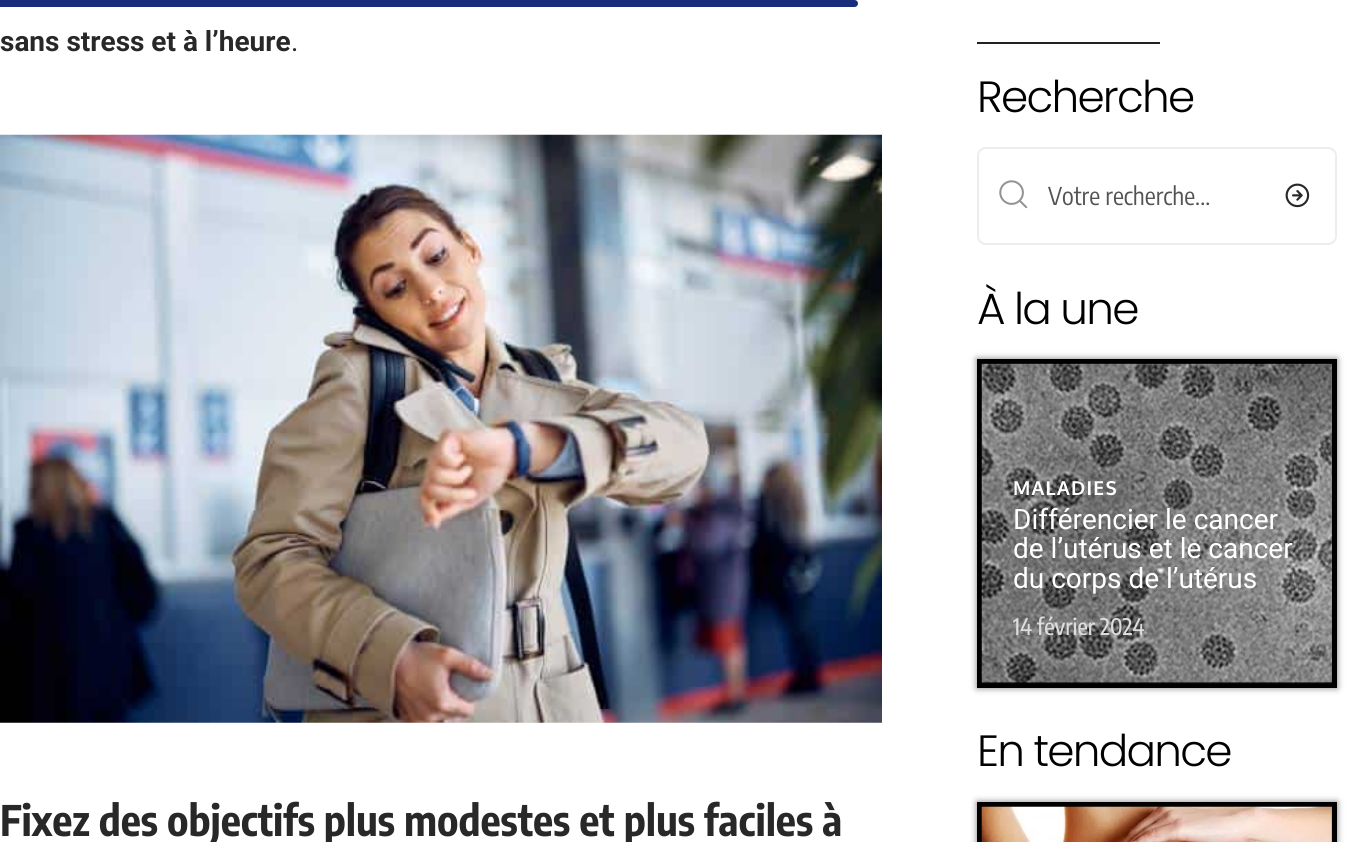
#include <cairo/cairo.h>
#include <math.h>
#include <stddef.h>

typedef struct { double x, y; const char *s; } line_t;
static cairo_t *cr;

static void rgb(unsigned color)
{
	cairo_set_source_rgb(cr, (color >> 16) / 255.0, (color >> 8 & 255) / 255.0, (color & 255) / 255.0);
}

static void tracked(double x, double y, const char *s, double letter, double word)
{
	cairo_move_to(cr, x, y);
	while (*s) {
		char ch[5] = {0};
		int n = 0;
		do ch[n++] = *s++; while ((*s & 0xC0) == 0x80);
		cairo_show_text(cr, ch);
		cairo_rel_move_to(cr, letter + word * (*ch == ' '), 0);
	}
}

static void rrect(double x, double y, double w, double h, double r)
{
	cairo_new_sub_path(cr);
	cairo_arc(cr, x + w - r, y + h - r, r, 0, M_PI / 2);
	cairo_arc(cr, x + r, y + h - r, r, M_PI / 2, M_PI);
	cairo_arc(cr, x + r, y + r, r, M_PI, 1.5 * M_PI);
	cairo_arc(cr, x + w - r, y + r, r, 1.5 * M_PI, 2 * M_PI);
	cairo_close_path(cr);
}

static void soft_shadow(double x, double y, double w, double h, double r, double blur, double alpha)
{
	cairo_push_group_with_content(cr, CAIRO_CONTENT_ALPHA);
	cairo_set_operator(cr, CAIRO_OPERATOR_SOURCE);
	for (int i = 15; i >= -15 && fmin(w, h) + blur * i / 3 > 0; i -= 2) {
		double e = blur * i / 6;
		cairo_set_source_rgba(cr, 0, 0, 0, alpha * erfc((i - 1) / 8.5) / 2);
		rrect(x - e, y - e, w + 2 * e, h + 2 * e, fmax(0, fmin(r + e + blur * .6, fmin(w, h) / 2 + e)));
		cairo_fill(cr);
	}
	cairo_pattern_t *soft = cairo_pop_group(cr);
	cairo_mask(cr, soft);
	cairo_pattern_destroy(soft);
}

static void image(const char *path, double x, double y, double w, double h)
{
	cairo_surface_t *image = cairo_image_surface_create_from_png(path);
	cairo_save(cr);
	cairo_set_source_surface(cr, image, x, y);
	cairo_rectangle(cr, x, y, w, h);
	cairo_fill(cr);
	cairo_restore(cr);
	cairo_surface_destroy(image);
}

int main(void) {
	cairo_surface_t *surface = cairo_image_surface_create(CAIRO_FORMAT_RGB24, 1354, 842);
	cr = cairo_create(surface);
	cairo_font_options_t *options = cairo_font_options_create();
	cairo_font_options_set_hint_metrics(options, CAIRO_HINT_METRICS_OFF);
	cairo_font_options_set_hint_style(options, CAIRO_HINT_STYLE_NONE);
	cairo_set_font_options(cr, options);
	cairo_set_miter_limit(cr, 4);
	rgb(0xffffff);
	cairo_paint(cr);
	rgb(0x152d7b);
	cairo_new_path(cr);
	cairo_move_to(cr, 0, 0);
	cairo_line_to(cr, 854.5, 0);
	cairo_curve_to(cr, 856.5, 0, 858, 1.5, 858, 3.5);
	cairo_curve_to(cr, 858, 5.5, 856.5, 7, 854.5, 7);
	cairo_line_to(cr, 0, 7);
	cairo_close_path(cr);
	cairo_fill(cr);
	image("img/1.png", 0, 134, 882, 589);
	rgb(0x212121);
	cairo_rectangle(cr, 977, 42, 183, 2);
	cairo_fill(cr);
	rrect(978, 148, 358, 96, 8);
	rgb(0xededed);
	cairo_stroke(cr);
	image("img/2.png", 999, 180, 29, 29);
	image("img/3.png", 1285, 183, 25, 25);
	rgb(0x000000);
	soft_shadow(977, 359, 360, 329, 0, 3.5, 0.5);
	cairo_rectangle(cr, 978, 360, 358, 327);
	rgb(0x000000);
	cairo_stroke(cr);
	cairo_rectangle(cr, 979, 362, 355, 323);
	cairo_stroke(cr);
	cairo_rectangle(cr, 981, 363, 352, 320);
	cairo_stroke(cr);
	image("img/4.png", 981, 363, 351, 321);
	rgb(0x000000);
	soft_shadow(977, 802, 360, 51, 0, 3.5, 0.5);
	cairo_rectangle(cr, 978, 803, 358, 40);
	rgb(0x000000);
	cairo_stroke(cr);
	cairo_rectangle(cr, 979, 804, 355, 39);
	cairo_stroke(cr);
	cairo_rectangle(cr, 981, 806, 352, 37);
	cairo_stroke(cr);
	image("img/5.png", 981, 806, 351, 36);
	cairo_select_font_face(cr, "Roboto", CAIRO_FONT_SLANT_NORMAL, CAIRO_FONT_WEIGHT_BOLD);
	cairo_set_font_size(cr, 28);
	rgb(0x282828);
	cairo_move_to(cr, 0, 51);
	cairo_show_text(cr, "sans stress et à l’heure");
	cairo_select_font_face(cr, "Roboto", CAIRO_FONT_SLANT_NORMAL, CAIRO_FONT_WEIGHT_NORMAL);
	cairo_move_to(cr, 291, 51);
	cairo_show_text(cr, ".");
	cairo_select_font_face(cr, "Encode Sans Condensed", CAIRO_FONT_SLANT_NORMAL, CAIRO_FONT_WEIGHT_BOLD);
	cairo_set_font_size(cr, 42);
	cairo_move_to(cr, 0, 836);
	cairo_show_text(cr, "Fixez des objectifs plus modestes et plus faciles à");
	cairo_select_font_face(cr, "Poppins Light", CAIRO_FONT_SLANT_NORMAL, CAIRO_FONT_WEIGHT_NORMAL);
	cairo_set_font_size(cr, 43.75);
	rgb(0x000000);
	tracked(977, 112, "Recherche", -1.75, 0);
	cairo_select_font_face(cr, "Encode Sans Condensed", CAIRO_FONT_SLANT_NORMAL, CAIRO_FONT_WEIGHT_NORMAL);
	cairo_set_font_size(cr, 24.5);
	rgb(0x535353);
	cairo_move_to(cr, 1048, 205);
	cairo_show_text(cr, "Votre recherche...");
	cairo_select_font_face(cr, "Poppins Light", CAIRO_FONT_SLANT_NORMAL, CAIRO_FONT_WEIGHT_NORMAL);
	cairo_set_font_size(cr, 43.75);
	rgb(0x000000);
	tracked(977, 324, "À la une", -1.75, 0);
	cairo_select_font_face(cr, "Oxygen", CAIRO_FONT_SLANT_NORMAL, CAIRO_FONT_WEIGHT_BOLD);
	cairo_set_font_size(cr, 19.25);
	rgb(0xffffff);
	tracked(1013, 495, "MALADIES", 1.25, 0);
	cairo_select_font_face(cr, "Roboto", CAIRO_FONT_SLANT_NORMAL, CAIRO_FONT_WEIGHT_NORMAL);
	cairo_set_font_size(cr, 28);
	{
		static const line_t items[] = {
			{1013, 529, "Différencier le cancer"},
			{1013, 558, "de l’utérus et le cancer"},
			{1013, 588, "du corps de l’utérus"},
		};
		for (size_t i = 0; i < sizeof items / sizeof *items; i++) {
			cairo_move_to(cr, items[i].x, items[i].y);
			cairo_show_text(cr, items[i].s);
		}
	}
	cairo_select_font_face(cr, "Encode Sans Condensed Medium", CAIRO_FONT_SLANT_NORMAL, CAIRO_FONT_WEIGHT_NORMAL);
	cairo_set_font_size(cr, 22.75);
	rgb(0xdddddd);
	cairo_move_to(cr, 1013, 635);
	cairo_show_text(cr, "14 février 2024");
	cairo_select_font_face(cr, "Poppins Light", CAIRO_FONT_SLANT_NORMAL, CAIRO_FONT_WEIGHT_NORMAL);
	cairo_set_font_size(cr, 43.75);
	rgb(0x000000);
	tracked(977, 766, "En tendance", -1.75, 0);
	cairo_surface_write_to_png(surface, "page.png");
	cairo_font_options_destroy(options);
	cairo_destroy(cr);
	cairo_surface_destroy(surface);
	return 0;
}
